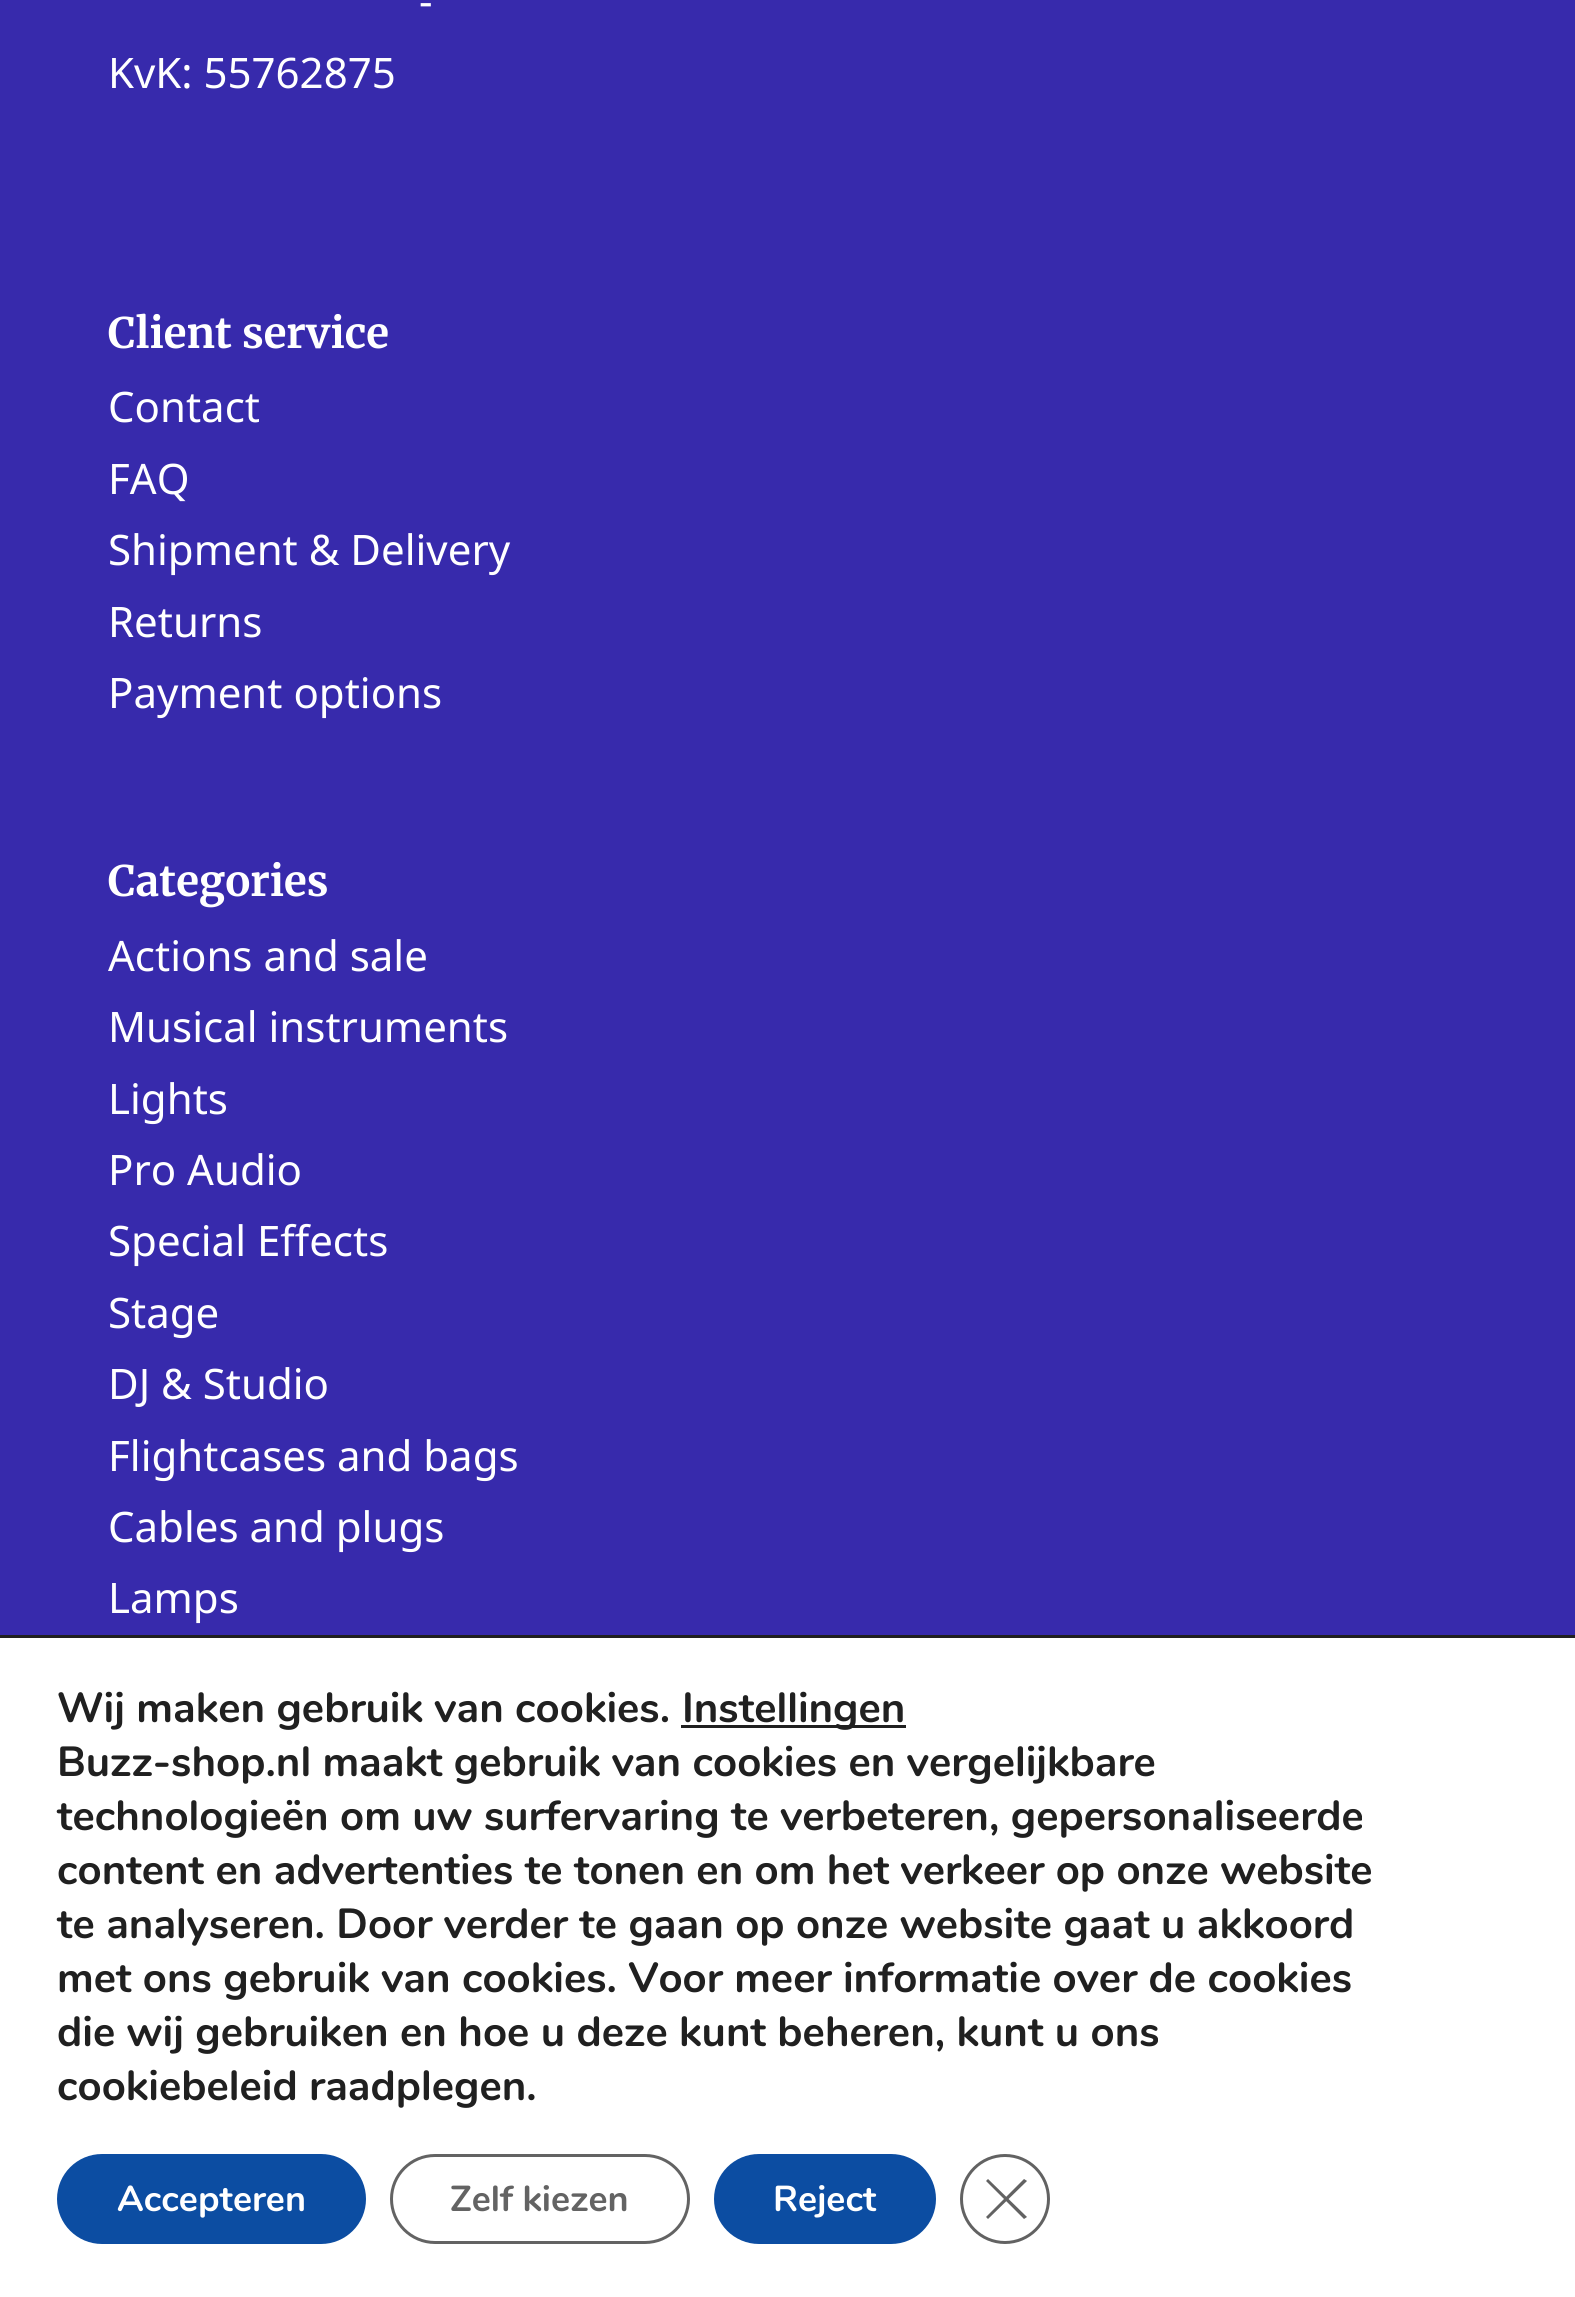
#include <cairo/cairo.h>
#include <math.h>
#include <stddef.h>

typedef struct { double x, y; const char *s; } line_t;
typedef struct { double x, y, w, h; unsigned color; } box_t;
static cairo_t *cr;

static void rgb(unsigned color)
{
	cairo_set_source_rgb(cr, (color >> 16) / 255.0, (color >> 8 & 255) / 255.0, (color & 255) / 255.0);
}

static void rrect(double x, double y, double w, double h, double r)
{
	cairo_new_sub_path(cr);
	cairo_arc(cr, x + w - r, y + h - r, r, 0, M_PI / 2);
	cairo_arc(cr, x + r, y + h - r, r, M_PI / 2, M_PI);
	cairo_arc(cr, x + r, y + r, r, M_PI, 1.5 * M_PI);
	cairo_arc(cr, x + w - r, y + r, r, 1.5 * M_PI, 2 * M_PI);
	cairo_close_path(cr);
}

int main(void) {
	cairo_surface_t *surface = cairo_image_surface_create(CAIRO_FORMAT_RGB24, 1575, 2297);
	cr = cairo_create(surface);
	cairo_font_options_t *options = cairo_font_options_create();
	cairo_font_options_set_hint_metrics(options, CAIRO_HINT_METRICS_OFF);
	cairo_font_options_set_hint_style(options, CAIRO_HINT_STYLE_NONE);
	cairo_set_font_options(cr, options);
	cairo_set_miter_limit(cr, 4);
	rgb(0x372aac);
	cairo_paint(cr);
	{
		static const box_t items[] = {
			{0, 1638, 1575, 659, 0xffffff},
			{0, 1635, 1575, 3, 0x202020},
			{681, 1725, 225, 3, 0x202020},
		};
		for (size_t i = 0; i < sizeof items / sizeof *items; i++) {
			rgb(items[i].color);
			cairo_rectangle(cr, items[i].x, items[i].y, items[i].w, items[i].h);
			cairo_fill(cr);
		}
	}
	rgb(0x0c4da2);
	rrect(57, 2154, 309, 90, 45);
	cairo_fill(cr);
	rrect(391.5, 2155.5, 297, 87, 43.5);
	rgb(0x636363);
	cairo_set_line_width(cr, 3);
	cairo_stroke(cr);
	rgb(0x0c4da2);
	rrect(714, 2154, 222, 90, 45);
	cairo_fill(cr);
	cairo_arc(cr, 1005, 2199, 43.5, 0, 2 * M_PI);
	rgb(0x626262);
	cairo_stroke(cr);
	cairo_new_path(cr);
	cairo_move_to(cr, 1024, 2179);
	cairo_line_to(cr, 1027, 2181);
	cairo_line_to(cr, 988, 2219);
	cairo_line_to(cr, 986, 2217);
	cairo_close_path(cr);
	cairo_fill(cr);
	cairo_new_path(cr);
	cairo_move_to(cr, 986, 2181);
	cairo_line_to(cr, 988, 2179);
	cairo_line_to(cr, 1027, 2217);
	cairo_line_to(cr, 1024, 2219);
	cairo_close_path(cr);
	cairo_fill(cr);
	cairo_select_font_face(cr, "Noto Sans", CAIRO_FONT_SLANT_NORMAL, CAIRO_FONT_WEIGHT_NORMAL);
	cairo_set_font_size(cr, 42);
	rgb(0xffffff);
	cairo_move_to(cr, 419, 16);
	cairo_show_text(cr, "-");
	cairo_move_to(cr, 108, 88);
	cairo_show_text(cr, "KvK: 55762875");
	cairo_select_font_face(cr, "Merriweather", CAIRO_FONT_SLANT_NORMAL, CAIRO_FONT_WEIGHT_BOLD);
	cairo_move_to(cr, 108, 348);
	cairo_show_text(cr, "Client service");
	cairo_select_font_face(cr, "Noto Sans", CAIRO_FONT_SLANT_NORMAL, CAIRO_FONT_WEIGHT_NORMAL);
	{
		static const line_t items[] = {
			{108, 422, "Contact"},
			{108, 494, "FAQ"},
			{108, 565, "Shipment & Delivery"},
			{108, 637, "Returns"},
			{108, 708, "Payment options"},
		};
		for (size_t i = 0; i < sizeof items / sizeof *items; i++) {
			cairo_move_to(cr, items[i].x, items[i].y);
			cairo_show_text(cr, items[i].s);
		}
	}
	cairo_select_font_face(cr, "Merriweather", CAIRO_FONT_SLANT_NORMAL, CAIRO_FONT_WEIGHT_BOLD);
	cairo_move_to(cr, 108, 896);
	cairo_show_text(cr, "Categories");
	cairo_select_font_face(cr, "Noto Sans", CAIRO_FONT_SLANT_NORMAL, CAIRO_FONT_WEIGHT_NORMAL);
	{
		static const line_t items[] = {
			{108, 971, "Actions and sale"},
			{108, 1042, "Musical instruments"},
			{108, 1114, "Lights"},
			{108, 1185, "Pro Audio"},
			{108, 1256, "Special Effects"},
			{108, 1328, "Stage"},
			{108, 1399, "DJ & Studio"},
			{108, 1471, "Flightcases and bags"},
			{108, 1542, "Cables and plugs"},
			{108, 1613, "Lamps"},
		};
		for (size_t i = 0; i < sizeof items / sizeof *items; i++) {
			cairo_move_to(cr, items[i].x, items[i].y);
			cairo_show_text(cr, items[i].s);
		}
	}
	cairo_select_font_face(cr, "Nunito", CAIRO_FONT_SLANT_NORMAL, CAIRO_FONT_WEIGHT_BOLD);
	rgb(0x202020);
	{
		static const line_t items[] = {
			{57, 1722, "Wij maken gebruik van cookies."},
			{682, 1722, "Instellingen"},
			{57, 1776, "Buzz-shop.nl maakt gebruik van cookies en vergelijkbare"},
			{57, 1830, "technologieën om uw surfervaring te verbeteren, gepersonaliseerde"},
			{57, 1884, "content en advertenties te tonen en om het verkeer op onze website"},
			{57, 1938, "te analyseren. Door verder te gaan op onze website gaat u akkoord"},
			{57, 1992, "met ons gebruik van cookies. Voor meer informatie over de cookies"},
			{57, 2046, "die wij gebruiken en hoe u deze kunt beheren, kunt u ons"},
			{57, 2100, "cookiebeleid raadplegen."},
		};
		for (size_t i = 0; i < sizeof items / sizeof *items; i++) {
			cairo_move_to(cr, items[i].x, items[i].y);
			cairo_show_text(cr, items[i].s);
		}
	}
	cairo_set_font_size(cr, 36);
	rgb(0xffffff);
	cairo_move_to(cr, 117, 2211);
	cairo_show_text(cr, "Accepteren");
	rgb(0x636363);
	cairo_move_to(cr, 450, 2211);
	cairo_show_text(cr, "Zelf kiezen");
	rgb(0xffffff);
	cairo_move_to(cr, 773, 2211);
	cairo_show_text(cr, "Reject");
	cairo_surface_write_to_png(surface, "page.png");
	cairo_font_options_destroy(options);
	cairo_destroy(cr);
	cairo_surface_destroy(surface);
	return 0;
}
